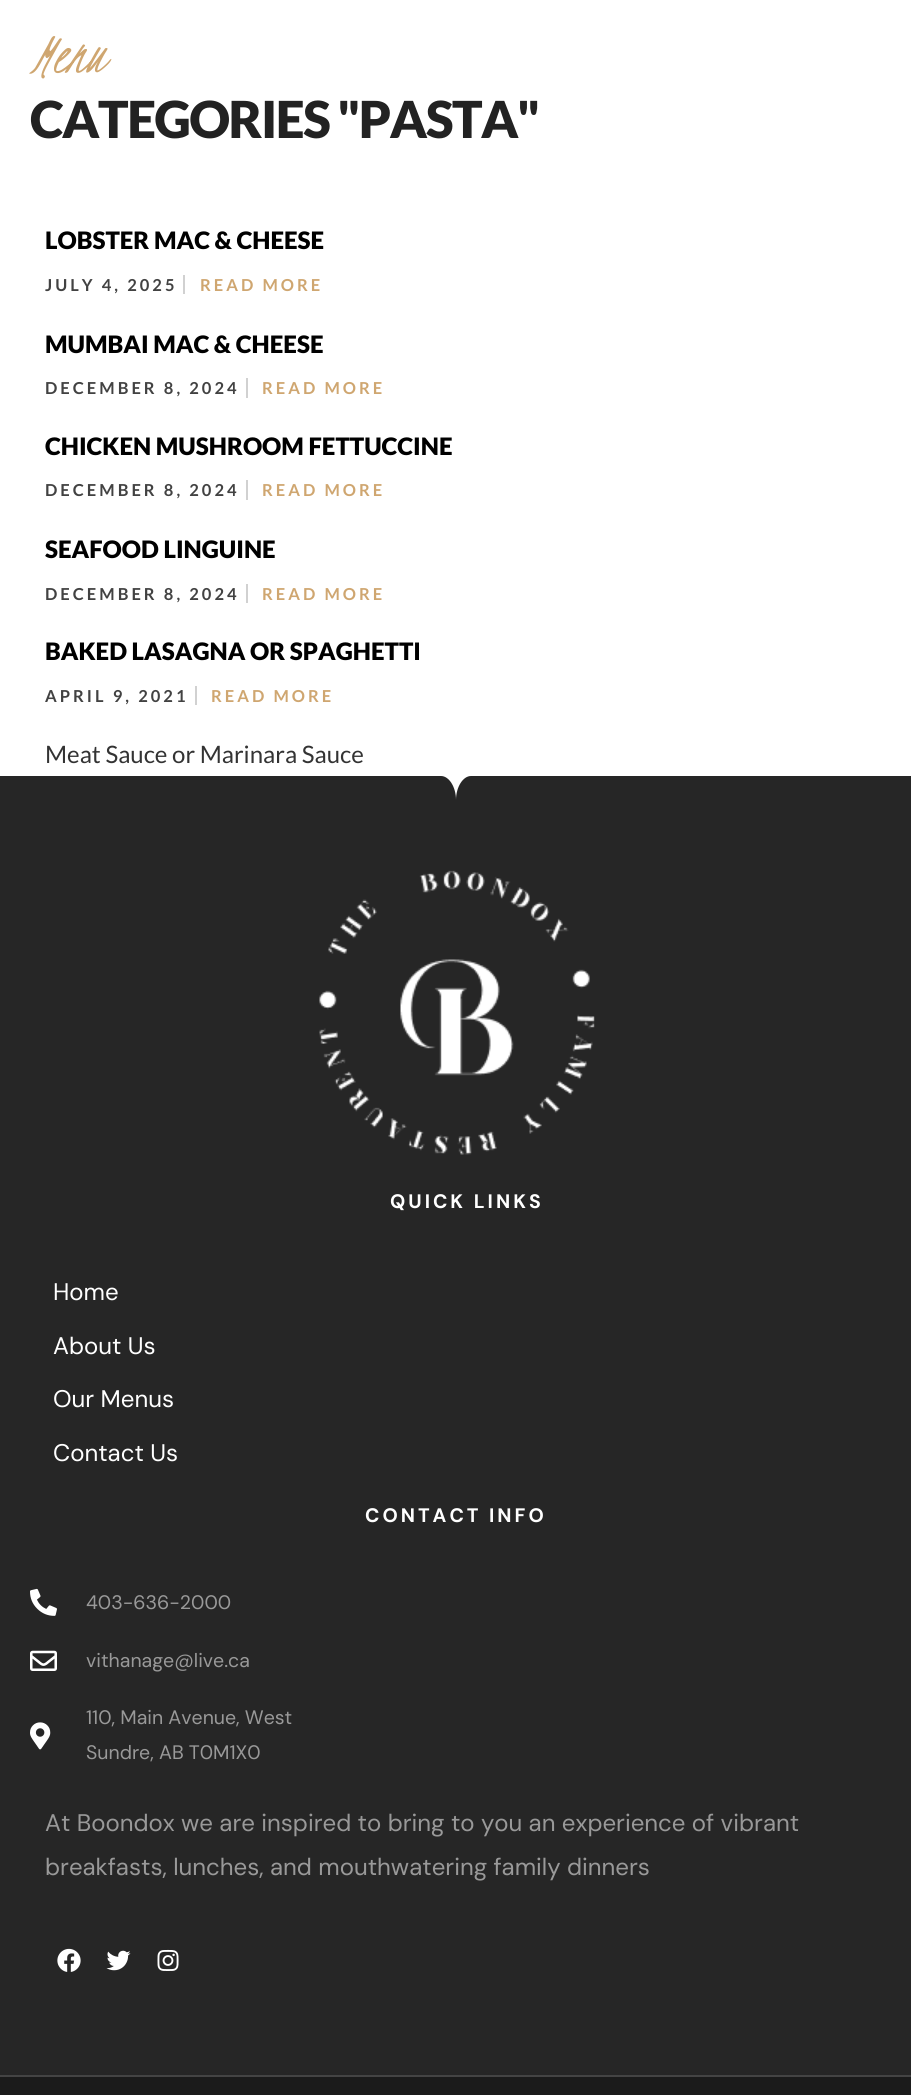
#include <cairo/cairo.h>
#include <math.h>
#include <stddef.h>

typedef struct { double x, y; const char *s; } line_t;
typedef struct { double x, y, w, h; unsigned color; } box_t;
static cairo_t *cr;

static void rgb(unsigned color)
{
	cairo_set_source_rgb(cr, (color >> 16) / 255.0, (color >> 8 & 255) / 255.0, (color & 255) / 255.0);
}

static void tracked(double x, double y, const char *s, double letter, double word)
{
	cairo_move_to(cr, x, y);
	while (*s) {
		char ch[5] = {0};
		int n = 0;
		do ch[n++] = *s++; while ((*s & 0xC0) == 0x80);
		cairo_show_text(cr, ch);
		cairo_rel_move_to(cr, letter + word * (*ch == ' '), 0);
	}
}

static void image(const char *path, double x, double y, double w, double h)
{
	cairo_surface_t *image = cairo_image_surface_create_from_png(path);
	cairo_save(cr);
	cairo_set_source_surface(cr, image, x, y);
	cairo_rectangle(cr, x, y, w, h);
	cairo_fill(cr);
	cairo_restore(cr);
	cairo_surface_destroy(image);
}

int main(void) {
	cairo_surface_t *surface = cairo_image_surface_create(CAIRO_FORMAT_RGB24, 911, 2095);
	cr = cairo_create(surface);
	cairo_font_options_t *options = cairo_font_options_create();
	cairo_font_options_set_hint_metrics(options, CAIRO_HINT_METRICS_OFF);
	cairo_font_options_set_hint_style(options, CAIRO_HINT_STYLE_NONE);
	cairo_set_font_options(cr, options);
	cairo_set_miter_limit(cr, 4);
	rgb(0xffffff);
	cairo_paint(cr);
	{
		static const box_t items[] = {
			{183, 275, 2, 19, 0xd1d1d1},
			{246, 378, 2, 20, 0xd1d1d1},
			{246, 480, 2, 20, 0xd1d1d1},
			{246, 584, 2, 19, 0xd1d1d1},
			{195, 686, 2, 19, 0xd1d1d1},
			{0, 776, 911, 1299, 0x262626},
		};
		for (size_t i = 0; i < sizeof items / sizeof *items; i++) {
			rgb(items[i].color);
			cairo_rectangle(cr, items[i].x, items[i].y, items[i].w, items[i].h);
			cairo_fill(cr);
		}
	}
	rgb(0xffffff);
	cairo_new_path(cr);
	cairo_move_to(cr, -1, 771);
	cairo_line_to(cr, -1, 776);
	cairo_line_to(cr, 441, 776);
	cairo_curve_to(cr, 449, 776, 456, 787, 456, 800);
	cairo_curve_to(cr, 456, 787, 463, 776, 471, 776);
	cairo_line_to(cr, 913, 776);
	cairo_line_to(cr, 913, 771);
	cairo_close_path(cr);
	cairo_fill(cr);
	image("img/1.png", 319, 870, 276, 285);
	image("img/2.png", 30, 1588, 27, 28);
	image("img/3.png", 30, 1650, 27, 21);
	image("img/4.png", 30, 1722, 21, 28);
	image("img/5.png", 57, 1948, 24, 24);
	image("img/6.png", 106, 1950, 25, 21);
	image("img/7.png", 157, 1949, 22, 22);
	rgb(0x1b1b1b);
	cairo_rectangle(cr, 0, 2077, 911, 18);
	cairo_fill(cr);
	rgb(0x444444);
	cairo_rectangle(cr, 0, 2075, 911, 2);
	cairo_fill(cr);
	cairo_select_font_face(cr, "Kristi", CAIRO_FONT_SLANT_ITALIC, CAIRO_FONT_WEIGHT_NORMAL);
	cairo_set_font_size(cr, 60);
	rgb(0xcfa670);
	cairo_move_to(cr, 30, 72);
	cairo_show_text(cr, "Menu");
	cairo_select_font_face(cr, "Lato Black", CAIRO_FONT_SLANT_NORMAL, CAIRO_FONT_WEIGHT_NORMAL);
	cairo_set_font_size(cr, 51);
	rgb(0x222222);
	tracked(30, 138, "CATEGORIES \"PASTA\"", -1.5, 0);
	cairo_set_font_size(cr, 24);
	rgb(0x000000);
	cairo_move_to(cr, 45, 249);
	cairo_show_text(cr, "LOBSTER MAC & CHEESE");
	cairo_select_font_face(cr, "Lato", CAIRO_FONT_SLANT_NORMAL, CAIRO_FONT_WEIGHT_BOLD);
	cairo_set_font_size(cr, 16.5);
	rgb(0x424242);
	tracked(45, 291, "JULY 4, 2025", 3, 0);
	rgb(0xcfa670);
	tracked(200, 291, "READ MORE", 3, 0);
	cairo_select_font_face(cr, "Lato Black", CAIRO_FONT_SLANT_NORMAL, CAIRO_FONT_WEIGHT_NORMAL);
	cairo_set_font_size(cr, 24);
	rgb(0x000000);
	cairo_move_to(cr, 45, 353);
	cairo_show_text(cr, "MUMBAI MAC & CHEESE");
	cairo_select_font_face(cr, "Lato", CAIRO_FONT_SLANT_NORMAL, CAIRO_FONT_WEIGHT_BOLD);
	cairo_set_font_size(cr, 16.5);
	rgb(0x424242);
	tracked(45, 394, "DECEMBER 8, 2024", 3, 0);
	rgb(0xcfa670);
	tracked(262, 394, "READ MORE", 3, 0);
	cairo_select_font_face(cr, "Lato Black", CAIRO_FONT_SLANT_NORMAL, CAIRO_FONT_WEIGHT_NORMAL);
	cairo_set_font_size(cr, 24);
	rgb(0x000000);
	cairo_move_to(cr, 45, 455);
	cairo_show_text(cr, "CHICKEN MUSHROOM FETTUCCINE");
	cairo_select_font_face(cr, "Lato", CAIRO_FONT_SLANT_NORMAL, CAIRO_FONT_WEIGHT_BOLD);
	cairo_set_font_size(cr, 16.5);
	rgb(0x424242);
	tracked(45, 496, "DECEMBER 8, 2024", 3, 0);
	rgb(0xcfa670);
	tracked(262, 496, "READ MORE", 3, 0);
	cairo_select_font_face(cr, "Lato Black", CAIRO_FONT_SLANT_NORMAL, CAIRO_FONT_WEIGHT_NORMAL);
	cairo_set_font_size(cr, 24);
	rgb(0x000000);
	cairo_move_to(cr, 45, 558);
	cairo_show_text(cr, "SEAFOOD LINGUINE");
	cairo_select_font_face(cr, "Lato", CAIRO_FONT_SLANT_NORMAL, CAIRO_FONT_WEIGHT_BOLD);
	cairo_set_font_size(cr, 16.5);
	rgb(0x424242);
	tracked(45, 600, "DECEMBER 8, 2024", 3, 0);
	rgb(0xcfa670);
	tracked(262, 600, "READ MORE", 3, 0);
	cairo_select_font_face(cr, "Lato Black", CAIRO_FONT_SLANT_NORMAL, CAIRO_FONT_WEIGHT_NORMAL);
	cairo_set_font_size(cr, 24);
	rgb(0x000000);
	cairo_move_to(cr, 45, 660);
	cairo_show_text(cr, "BAKED LASAGNA OR SPAGHETTI");
	cairo_select_font_face(cr, "Lato", CAIRO_FONT_SLANT_NORMAL, CAIRO_FONT_WEIGHT_BOLD);
	cairo_set_font_size(cr, 16.5);
	rgb(0x424242);
	tracked(45, 702, "APRIL 9, 2021", 3, 0);
	rgb(0xcfa670);
	tracked(211, 702, "READ MORE", 3, 0);
	cairo_select_font_face(cr, "Lato", CAIRO_FONT_SLANT_NORMAL, CAIRO_FONT_WEIGHT_NORMAL);
	cairo_set_font_size(cr, 24);
	rgb(0x333333);
	cairo_move_to(cr, 45, 763);
	cairo_show_text(cr, "Meat Sauce or Marinara Sauce");
	cairo_select_font_face(cr, "DM Sans", CAIRO_FONT_SLANT_NORMAL, CAIRO_FONT_WEIGHT_BOLD);
	cairo_set_font_size(cr, 19.5);
	rgb(0xffffff);
	tracked(390, 1208, "QUICK LINKS", 3, 0);
	cairo_select_font_face(cr, "DM Sans", CAIRO_FONT_SLANT_NORMAL, CAIRO_FONT_WEIGHT_NORMAL);
	cairo_set_font_size(cr, 24);
	{
		static const line_t items[] = {
			{53, 1300, "Home"},
			{53, 1354, "About Us"},
			{53, 1407, "Our Menus"},
			{53, 1461, "Contact Us"},
		};
		for (size_t i = 0; i < sizeof items / sizeof *items; i++) {
			cairo_move_to(cr, items[i].x, items[i].y);
			cairo_show_text(cr, items[i].s);
		}
	}
	cairo_select_font_face(cr, "DM Sans", CAIRO_FONT_SLANT_NORMAL, CAIRO_FONT_WEIGHT_BOLD);
	cairo_set_font_size(cr, 19.5);
	tracked(365, 1522, "CONTACT INFO", 3, 0);
	cairo_select_font_face(cr, "DM Sans", CAIRO_FONT_SLANT_NORMAL, CAIRO_FONT_WEIGHT_NORMAL);
	rgb(0x999999);
	{
		static const line_t items[] = {
			{86, 1609, "403-636-2000"},
			{86, 1667, "vithanage@live.ca"},
			{86, 1724, "110, Main Avenue, West"},
			{86, 1759, "Sundre, AB T0M1X0"},
		};
		for (size_t i = 0; i < sizeof items / sizeof *items; i++) {
			cairo_move_to(cr, items[i].x, items[i].y);
			cairo_show_text(cr, items[i].s);
		}
	}
	cairo_set_font_size(cr, 24);
	cairo_move_to(cr, 45, 1831);
	cairo_show_text(cr, "At Boondox we are inspired to bring to you an experience of vibrant");
	cairo_move_to(cr, 45, 1875);
	cairo_show_text(cr, "breakfasts, lunches, and mouthwatering family dinners");
	cairo_surface_write_to_png(surface, "page.png");
	cairo_font_options_destroy(options);
	cairo_destroy(cr);
	cairo_surface_destroy(surface);
	return 0;
}
